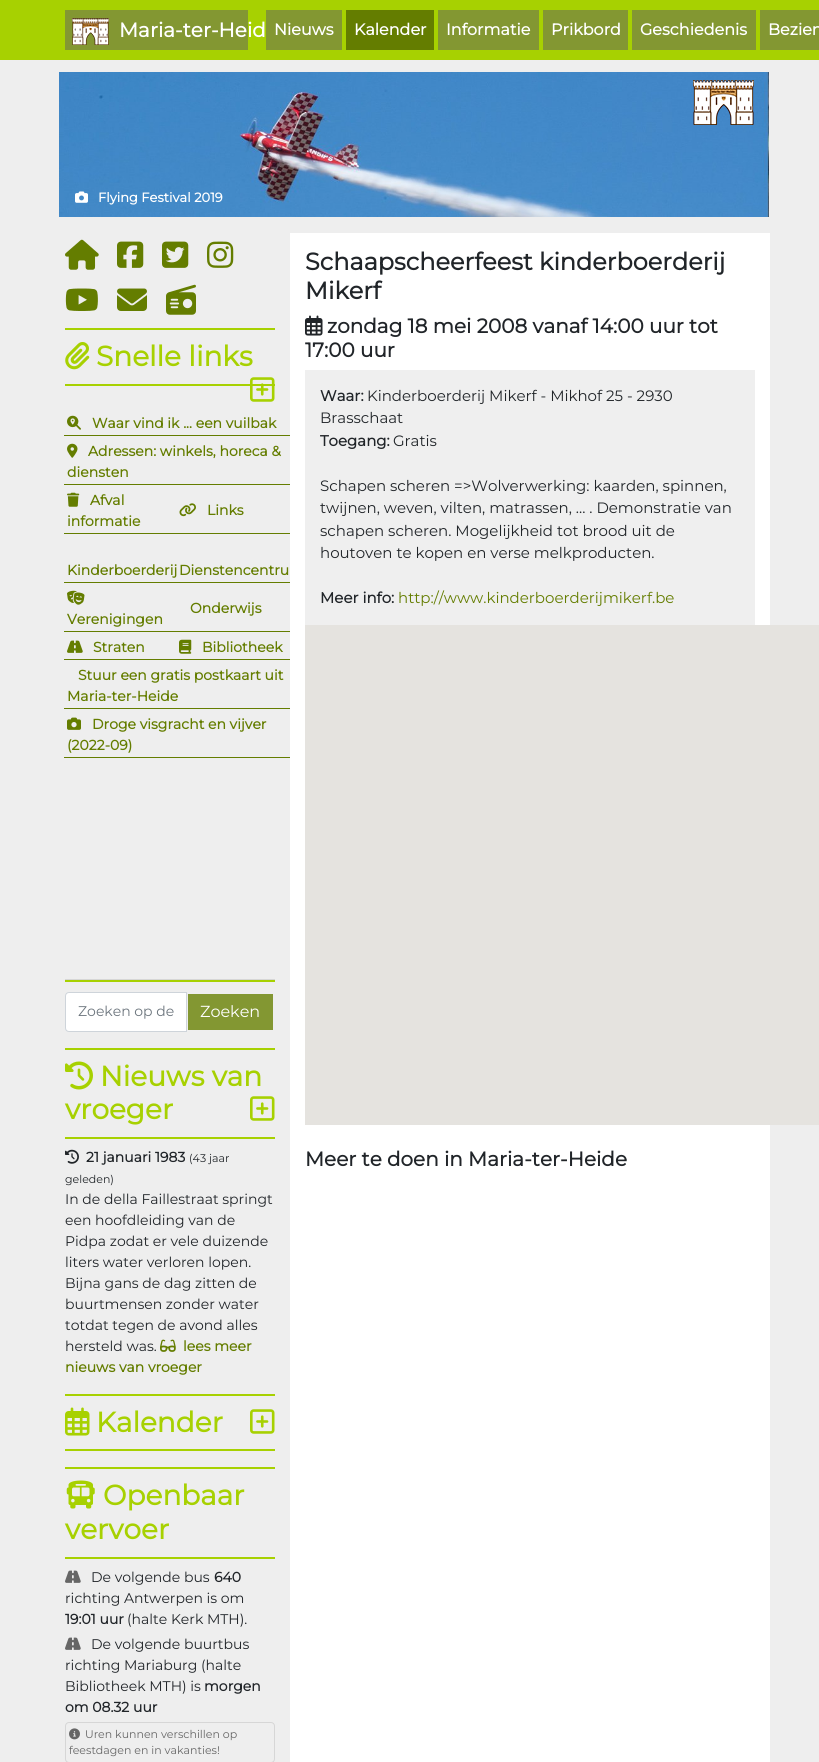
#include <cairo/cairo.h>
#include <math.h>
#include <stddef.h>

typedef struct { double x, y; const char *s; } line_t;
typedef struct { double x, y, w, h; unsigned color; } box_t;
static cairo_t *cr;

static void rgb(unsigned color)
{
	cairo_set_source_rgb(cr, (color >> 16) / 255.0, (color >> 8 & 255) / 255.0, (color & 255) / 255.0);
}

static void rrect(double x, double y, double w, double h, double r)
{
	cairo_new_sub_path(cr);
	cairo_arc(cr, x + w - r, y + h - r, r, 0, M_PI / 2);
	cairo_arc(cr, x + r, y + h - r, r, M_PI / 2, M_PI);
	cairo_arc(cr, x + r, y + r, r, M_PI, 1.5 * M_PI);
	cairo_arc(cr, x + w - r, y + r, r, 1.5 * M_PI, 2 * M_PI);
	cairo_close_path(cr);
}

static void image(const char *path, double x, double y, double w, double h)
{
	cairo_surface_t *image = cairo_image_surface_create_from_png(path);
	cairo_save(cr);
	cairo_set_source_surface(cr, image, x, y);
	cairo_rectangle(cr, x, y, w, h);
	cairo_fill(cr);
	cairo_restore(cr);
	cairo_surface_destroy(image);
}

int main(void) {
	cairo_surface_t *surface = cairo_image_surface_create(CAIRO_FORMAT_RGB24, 819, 1762);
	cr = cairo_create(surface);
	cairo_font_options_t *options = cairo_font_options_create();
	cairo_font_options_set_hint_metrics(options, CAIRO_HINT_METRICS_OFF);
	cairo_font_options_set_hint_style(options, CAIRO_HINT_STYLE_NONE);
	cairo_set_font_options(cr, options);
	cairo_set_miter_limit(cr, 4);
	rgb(0xeeeeee);
	cairo_paint(cr);
	rgb(0xa7d101);
	cairo_rectangle(cr, 0, 0, 819, 60);
	cairo_fill(cr);
	rgb(0x839732);
	cairo_rectangle(cr, 65, 10, 183, 40);
	cairo_fill(cr);
	image("img/1.png", 72, 18, 37, 27);
	{
		static const box_t items[] = {
			{266, 10, 76, 40, 0x839732},
			{346, 10, 88, 40, 0x647d00},
			{438, 10, 101, 40, 0x839732},
			{543, 10, 85, 40, 0x839732},
			{632, 10, 124, 40, 0x839732},
			{760, 10, 59, 40, 0x839732},
		};
		for (size_t i = 0; i < sizeof items / sizeof *items; i++) {
			rgb(items[i].color);
			cairo_rectangle(cr, items[i].x, items[i].y, items[i].w, items[i].h);
			cairo_fill(cr);
		}
	}
	image("img/2.png", 59, 72, 710, 145);
	image("img/3.png", 693, 80, 61, 45);
	image("img/4.png", 75, 191, 13, 12);
	image("img/5.png", 65, 239, 34, 31);
	image("img/6.png", 117, 241, 27, 27);
	image("img/7.png", 162, 241, 27, 27);
	image("img/8.png", 207, 241, 27, 27);
	image("img/9.png", 65, 288, 33, 23);
	image("img/10.png", 117, 288, 30, 23);
	image("img/11.png", 166, 284, 30, 31);
	rgb(0xa7d101);
	cairo_rectangle(cr, 65, 328, 210, 2);
	cairo_fill(cr);
	cairo_rectangle(cr, 65, 384, 210, 2);
	cairo_fill(cr);
	image("img/12.png", 65, 342, 25, 28);
	image("img/13.png", 250, 377, 25, 25);
	rgb(0x647d00);
	cairo_rectangle(cr, 64, 435, 226, 1);
	cairo_fill(cr);
	image("img/14.png", 67, 415, 14, 15);
	cairo_rectangle(cr, 64, 484, 226, 1);
	cairo_fill(cr);
	image("img/15.png", 67, 443, 11, 15);
	image("img/16.png", 67, 492, 13, 15);
	cairo_rectangle(cr, 64, 533, 226, 1);
	cairo_fill(cr);
	image("img/17.png", 179, 503, 17, 14);
	cairo_rectangle(cr, 64, 582, 226, 1);
	cairo_fill(cr);
	cairo_rectangle(cr, 64, 631, 226, 1);
	cairo_fill(cr);
	image("img/18.png", 67, 590, 18, 15);
	image("img/19.png", 67, 640, 16, 13);
	cairo_rectangle(cr, 64, 659, 226, 1);
	cairo_fill(cr);
	image("img/20.png", 179, 639, 13, 15);
	cairo_rectangle(cr, 64, 708, 226, 1);
	cairo_fill(cr);
	cairo_rectangle(cr, 64, 757, 226, 1);
	cairo_fill(cr);
	image("img/21.png", 67, 717, 14, 13);
	rgb(0xd6d6d6);
	cairo_rectangle(cr, 65, 979, 210, 1);
	cairo_fill(cr);
	rgb(0xa7d101);
	cairo_rectangle(cr, 65, 980, 210, 2);
	cairo_fill(cr);
	rgb(0xffffff);
	cairo_new_path(cr);
	cairo_move_to(cr, 69, 992.5);
	cairo_line_to(cr, 186.5, 992.5);
	cairo_line_to(cr, 186.5, 1031.5);
	cairo_line_to(cr, 69, 1031.5);
	cairo_curve_to(cr, 67, 1031.5, 65.5, 1030, 65.5, 1028);
	cairo_line_to(cr, 65.5, 996);
	cairo_curve_to(cr, 65.5, 994, 67, 992.5, 69, 992.5);
	cairo_close_path(cr);
	cairo_fill_preserve(cr);
	rgb(0xced4da);
	cairo_set_line_width(cr, 1);
	cairo_stroke(cr);
	{
		static const box_t items[] = {
			{188, 994, 85, 36, 0x839732},
			{65, 1048, 210, 2, 0xa7d101},
			{65, 1137, 210, 2, 0xa7d101},
		};
		for (size_t i = 0; i < sizeof items / sizeof *items; i++) {
			rgb(items[i].color);
			cairo_rectangle(cr, items[i].x, items[i].y, items[i].w, items[i].h);
			cairo_fill(cr);
		}
	}
	image("img/22.png", 65, 1061, 28, 29);
	image("img/23.png", 250, 1096, 25, 25);
	image("img/24.png", 65, 1149, 14, 15);
	image("img/25.png", 160, 1339, 16, 13);
	cairo_rectangle(cr, 65, 1394, 210, 2);
	cairo_fill(cr);
	cairo_rectangle(cr, 65, 1449, 210, 2);
	cairo_fill(cr);
	image("img/26.png", 65, 1407, 25, 29);
	image("img/23.png", 250, 1409, 25, 25);
	cairo_rectangle(cr, 65, 1467, 210, 2);
	cairo_fill(cr);
	cairo_rectangle(cr, 65, 1557, 210, 2);
	cairo_fill(cr);
	image("img/27.png", 66, 1480, 29, 29);
	image("img/28.png", 65, 1570, 16, 13);
	image("img/28.png", 65, 1637, 16, 13);
	rrect(65.5, 1722.5, 209, 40, 3.5);
	rgb(0xd6d6d6);
	cairo_stroke(cr);
	image("img/29.png", 69, 1728, 11, 12);
	rgb(0xffffff);
	cairo_rectangle(cr, 290, 233, 480, 1529);
	cairo_fill(cr);
	image("img/30.png", 305, 315, 18, 21);
	rgb(0xefefef);
	cairo_rectangle(cr, 305, 370, 450, 255);
	cairo_fill(cr);
	rgb(0xe5e3df);
	cairo_rectangle(cr, 305, 625, 514, 500);
	cairo_fill(cr);
	cairo_select_font_face(cr, "Montserrat", CAIRO_FONT_SLANT_NORMAL, CAIRO_FONT_WEIGHT_BOLD);
	cairo_set_font_size(cr, 20);
	rgb(0xffffff);
	cairo_move_to(cr, 119, 37);
	cairo_show_text(cr, "Maria-ter-Heid");
	cairo_set_font_size(cr, 16);
	{
		static const line_t items[] = {
			{274, 35, "Nieuws"},
			{354, 35, "Kalender"},
			{446, 35, "Informatie"},
			{551, 35, "Prikbord"},
			{640, 35, "Geschiedenis"},
			{768, 35, "Bezien"},
		};
		for (size_t i = 0; i < sizeof items / sizeof *items; i++) {
			cairo_move_to(cr, items[i].x, items[i].y);
			cairo_show_text(cr, items[i].s);
		}
	}
	cairo_set_font_size(cr, 13);
	cairo_move_to(cr, 98, 202);
	cairo_show_text(cr, "Flying Festival 2019");
	cairo_set_font_size(cr, 28);
	rgb(0xa7d101);
	cairo_move_to(cr, 96, 366);
	cairo_show_text(cr, "Snelle links");
	cairo_set_font_size(cr, 14);
	rgb(0x647d00);
	{
		static const line_t items[] = {
			{92, 428, "Waar vind ik ... een vuilbak"},
			{88, 456, "Adressen: winkels, horeca &"},
			{67, 477, "diensten"},
			{90, 505, "Afval"},
			{67, 526, "informatie"},
			{207, 515, "Links"},
			{67, 575, "Kinderboerderij"},
			{179, 575, "Dienstencentru"},
			{190, 613, "Onderwijs"},
			{67, 624, "Verenigingen"},
			{93, 652, "Straten"},
			{202, 652, "Bibliotheek"},
			{78, 680, "Stuur een gratis postkaart uit"},
			{67, 701, "Maria-ter-Heide"},
			{92, 729, "Droge visgracht en vijver"},
			{67, 750, "(2022-09)"},
		};
		for (size_t i = 0; i < sizeof items / sizeof *items; i++) {
			cairo_move_to(cr, items[i].x, items[i].y);
			cairo_show_text(cr, items[i].s);
		}
	}
	cairo_select_font_face(cr, "Montserrat Thin", CAIRO_FONT_SLANT_NORMAL, CAIRO_FONT_WEIGHT_NORMAL);
	rgb(0x6c757d);
	cairo_move_to(cr, 78, 1016);
	cairo_show_text(cr, "Zoeken op de");
	cairo_set_font_size(cr, 16);
	rgb(0xffffff);
	cairo_move_to(cr, 200, 1017);
	cairo_show_text(cr, "Zoeken");
	cairo_select_font_face(cr, "Montserrat", CAIRO_FONT_SLANT_NORMAL, CAIRO_FONT_WEIGHT_BOLD);
	cairo_set_font_size(cr, 28);
	rgb(0xa7d101);
	cairo_move_to(cr, 100, 1086);
	cairo_show_text(cr, "Nieuws van");
	cairo_move_to(cr, 65, 1119);
	cairo_show_text(cr, "vroeger");
	cairo_set_font_size(cr, 14);
	rgb(0x212529);
	cairo_move_to(cr, 86, 1162);
	cairo_show_text(cr, "21 januari 1983");
	cairo_select_font_face(cr, "Montserrat Thin", CAIRO_FONT_SLANT_NORMAL, CAIRO_FONT_WEIGHT_NORMAL);
	cairo_set_font_size(cr, 11);
	cairo_move_to(cr, 189, 1162);
	cairo_show_text(cr, "(43 jaar");
	cairo_move_to(cr, 65, 1183);
	cairo_show_text(cr, "geleden)");
	cairo_set_font_size(cr, 14);
	{
		static const line_t items[] = {
			{65, 1204, "In de della Faillestraat springt"},
			{65, 1225, "een hoofdleiding van de"},
			{65, 1246, "Pidpa zodat er vele duizende"},
			{65, 1267, "liters water verloren lopen."},
			{65, 1288, "Bijna gans de dag zitten de"},
			{65, 1309, "buurtmensen zonder water"},
			{65, 1330, "totdat tegen de avond alles"},
			{65, 1351, "hersteld was."},
		};
		for (size_t i = 0; i < sizeof items / sizeof *items; i++) {
			cairo_move_to(cr, items[i].x, items[i].y);
			cairo_show_text(cr, items[i].s);
		}
	}
	cairo_select_font_face(cr, "Montserrat", CAIRO_FONT_SLANT_NORMAL, CAIRO_FONT_WEIGHT_BOLD);
	rgb(0x647d00);
	cairo_move_to(cr, 183, 1351);
	cairo_show_text(cr, "lees meer");
	cairo_move_to(cr, 65, 1372);
	cairo_show_text(cr, "nieuws van vroeger");
	cairo_set_font_size(cr, 28);
	rgb(0xa7d101);
	{
		static const line_t items[] = {
			{96, 1432, "Kalender"},
			{103, 1505, "Openbaar"},
			{65, 1539, "vervoer"},
		};
		for (size_t i = 0; i < sizeof items / sizeof *items; i++) {
			cairo_move_to(cr, items[i].x, items[i].y);
			cairo_show_text(cr, items[i].s);
		}
	}
	cairo_select_font_face(cr, "Montserrat Thin", CAIRO_FONT_SLANT_NORMAL, CAIRO_FONT_WEIGHT_NORMAL);
	cairo_set_font_size(cr, 14);
	rgb(0x212529);
	cairo_move_to(cr, 91, 1582);
	cairo_show_text(cr, "De volgende bus");
	cairo_select_font_face(cr, "Montserrat", CAIRO_FONT_SLANT_NORMAL, CAIRO_FONT_WEIGHT_BOLD);
	cairo_move_to(cr, 214, 1582);
	cairo_show_text(cr, "640");
	cairo_select_font_face(cr, "Montserrat Thin", CAIRO_FONT_SLANT_NORMAL, CAIRO_FONT_WEIGHT_NORMAL);
	cairo_move_to(cr, 65, 1603);
	cairo_show_text(cr, "richting Antwerpen is om");
	cairo_select_font_face(cr, "Montserrat", CAIRO_FONT_SLANT_NORMAL, CAIRO_FONT_WEIGHT_BOLD);
	cairo_move_to(cr, 65, 1624);
	cairo_show_text(cr, "19:01 uur");
	cairo_select_font_face(cr, "Montserrat Thin", CAIRO_FONT_SLANT_NORMAL, CAIRO_FONT_WEIGHT_NORMAL);
	{
		static const line_t items[] = {
			{127, 1624, "(halte Kerk MTH)."},
			{91, 1649, "De volgende buurtbus"},
			{65, 1670, "richting Mariaburg (halte"},
			{65, 1691, "Bibliotheek MTH) is"},
		};
		for (size_t i = 0; i < sizeof items / sizeof *items; i++) {
			cairo_move_to(cr, items[i].x, items[i].y);
			cairo_show_text(cr, items[i].s);
		}
	}
	cairo_select_font_face(cr, "Montserrat", CAIRO_FONT_SLANT_NORMAL, CAIRO_FONT_WEIGHT_BOLD);
	cairo_move_to(cr, 204, 1691);
	cairo_show_text(cr, "morgen");
	cairo_move_to(cr, 65, 1712);
	cairo_show_text(cr, "om 08.32 uur");
	cairo_select_font_face(cr, "Montserrat Thin", CAIRO_FONT_SLANT_NORMAL, CAIRO_FONT_WEIGHT_NORMAL);
	cairo_set_font_size(cr, 11);
	rgb(0x666666);
	cairo_move_to(cr, 85, 1738);
	cairo_show_text(cr, "Uren kunnen verschillen op");
	cairo_move_to(cr, 69, 1754);
	cairo_show_text(cr, "feestdagen en in vakanties!");
	cairo_select_font_face(cr, "Montserrat", CAIRO_FONT_SLANT_NORMAL, CAIRO_FONT_WEIGHT_BOLD);
	cairo_set_font_size(cr, 24);
	rgb(0x212529);
	cairo_move_to(cr, 305, 270);
	cairo_show_text(cr, "Schaapscheerfeest kinderboerderij");
	cairo_move_to(cr, 305, 299);
	cairo_show_text(cr, "Mikerf");
	cairo_set_font_size(cr, 20);
	cairo_move_to(cr, 327, 333);
	cairo_show_text(cr, "zondag 18 mei 2008 vanaf 14:00 uur tot");
	cairo_move_to(cr, 305, 357);
	cairo_show_text(cr, "17:00 uur");
	cairo_set_font_size(cr, 15);
	cairo_move_to(cr, 320, 401);
	cairo_show_text(cr, "Waar:");
	cairo_select_font_face(cr, "Montserrat Thin", CAIRO_FONT_SLANT_NORMAL, CAIRO_FONT_WEIGHT_NORMAL);
	cairo_move_to(cr, 367, 401);
	cairo_show_text(cr, "Kinderboerderij Mikerf - Mikhof 25 - 2930");
	cairo_move_to(cr, 320, 423);
	cairo_show_text(cr, "Brasschaat");
	cairo_select_font_face(cr, "Montserrat", CAIRO_FONT_SLANT_NORMAL, CAIRO_FONT_WEIGHT_BOLD);
	cairo_move_to(cr, 320, 446);
	cairo_show_text(cr, "Toegang:");
	cairo_select_font_face(cr, "Montserrat Thin", CAIRO_FONT_SLANT_NORMAL, CAIRO_FONT_WEIGHT_NORMAL);
	{
		static const line_t items[] = {
			{393, 446, "Gratis"},
			{320, 491, "Schapen scheren =>Wolverwerking: kaarden, spinnen,"},
			{320, 513, "twijnen, weven, vilten, matrassen, ... . Demonstratie van"},
			{320, 536, "schapen scheren. Mogelijkheid tot brood uit de"},
			{320, 558, "houtoven te kopen en verse melkproducten."},
		};
		for (size_t i = 0; i < sizeof items / sizeof *items; i++) {
			cairo_move_to(cr, items[i].x, items[i].y);
			cairo_show_text(cr, items[i].s);
		}
	}
	cairo_select_font_face(cr, "Montserrat", CAIRO_FONT_SLANT_NORMAL, CAIRO_FONT_WEIGHT_BOLD);
	cairo_move_to(cr, 320, 603);
	cairo_show_text(cr, "Meer info:");
	cairo_select_font_face(cr, "Montserrat Thin", CAIRO_FONT_SLANT_NORMAL, CAIRO_FONT_WEIGHT_NORMAL);
	rgb(0x647d00);
	cairo_move_to(cr, 398, 603);
	cairo_show_text(cr, "http://www.kinderboerderijmikerf.be");
	cairo_select_font_face(cr, "Montserrat", CAIRO_FONT_SLANT_NORMAL, CAIRO_FONT_WEIGHT_BOLD);
	cairo_set_font_size(cr, 20);
	rgb(0x212529);
	cairo_move_to(cr, 305, 1166);
	cairo_show_text(cr, "Meer te doen in Maria-ter-Heide");
	cairo_surface_write_to_png(surface, "page.png");
	cairo_font_options_destroy(options);
	cairo_destroy(cr);
	cairo_surface_destroy(surface);
	return 0;
}
